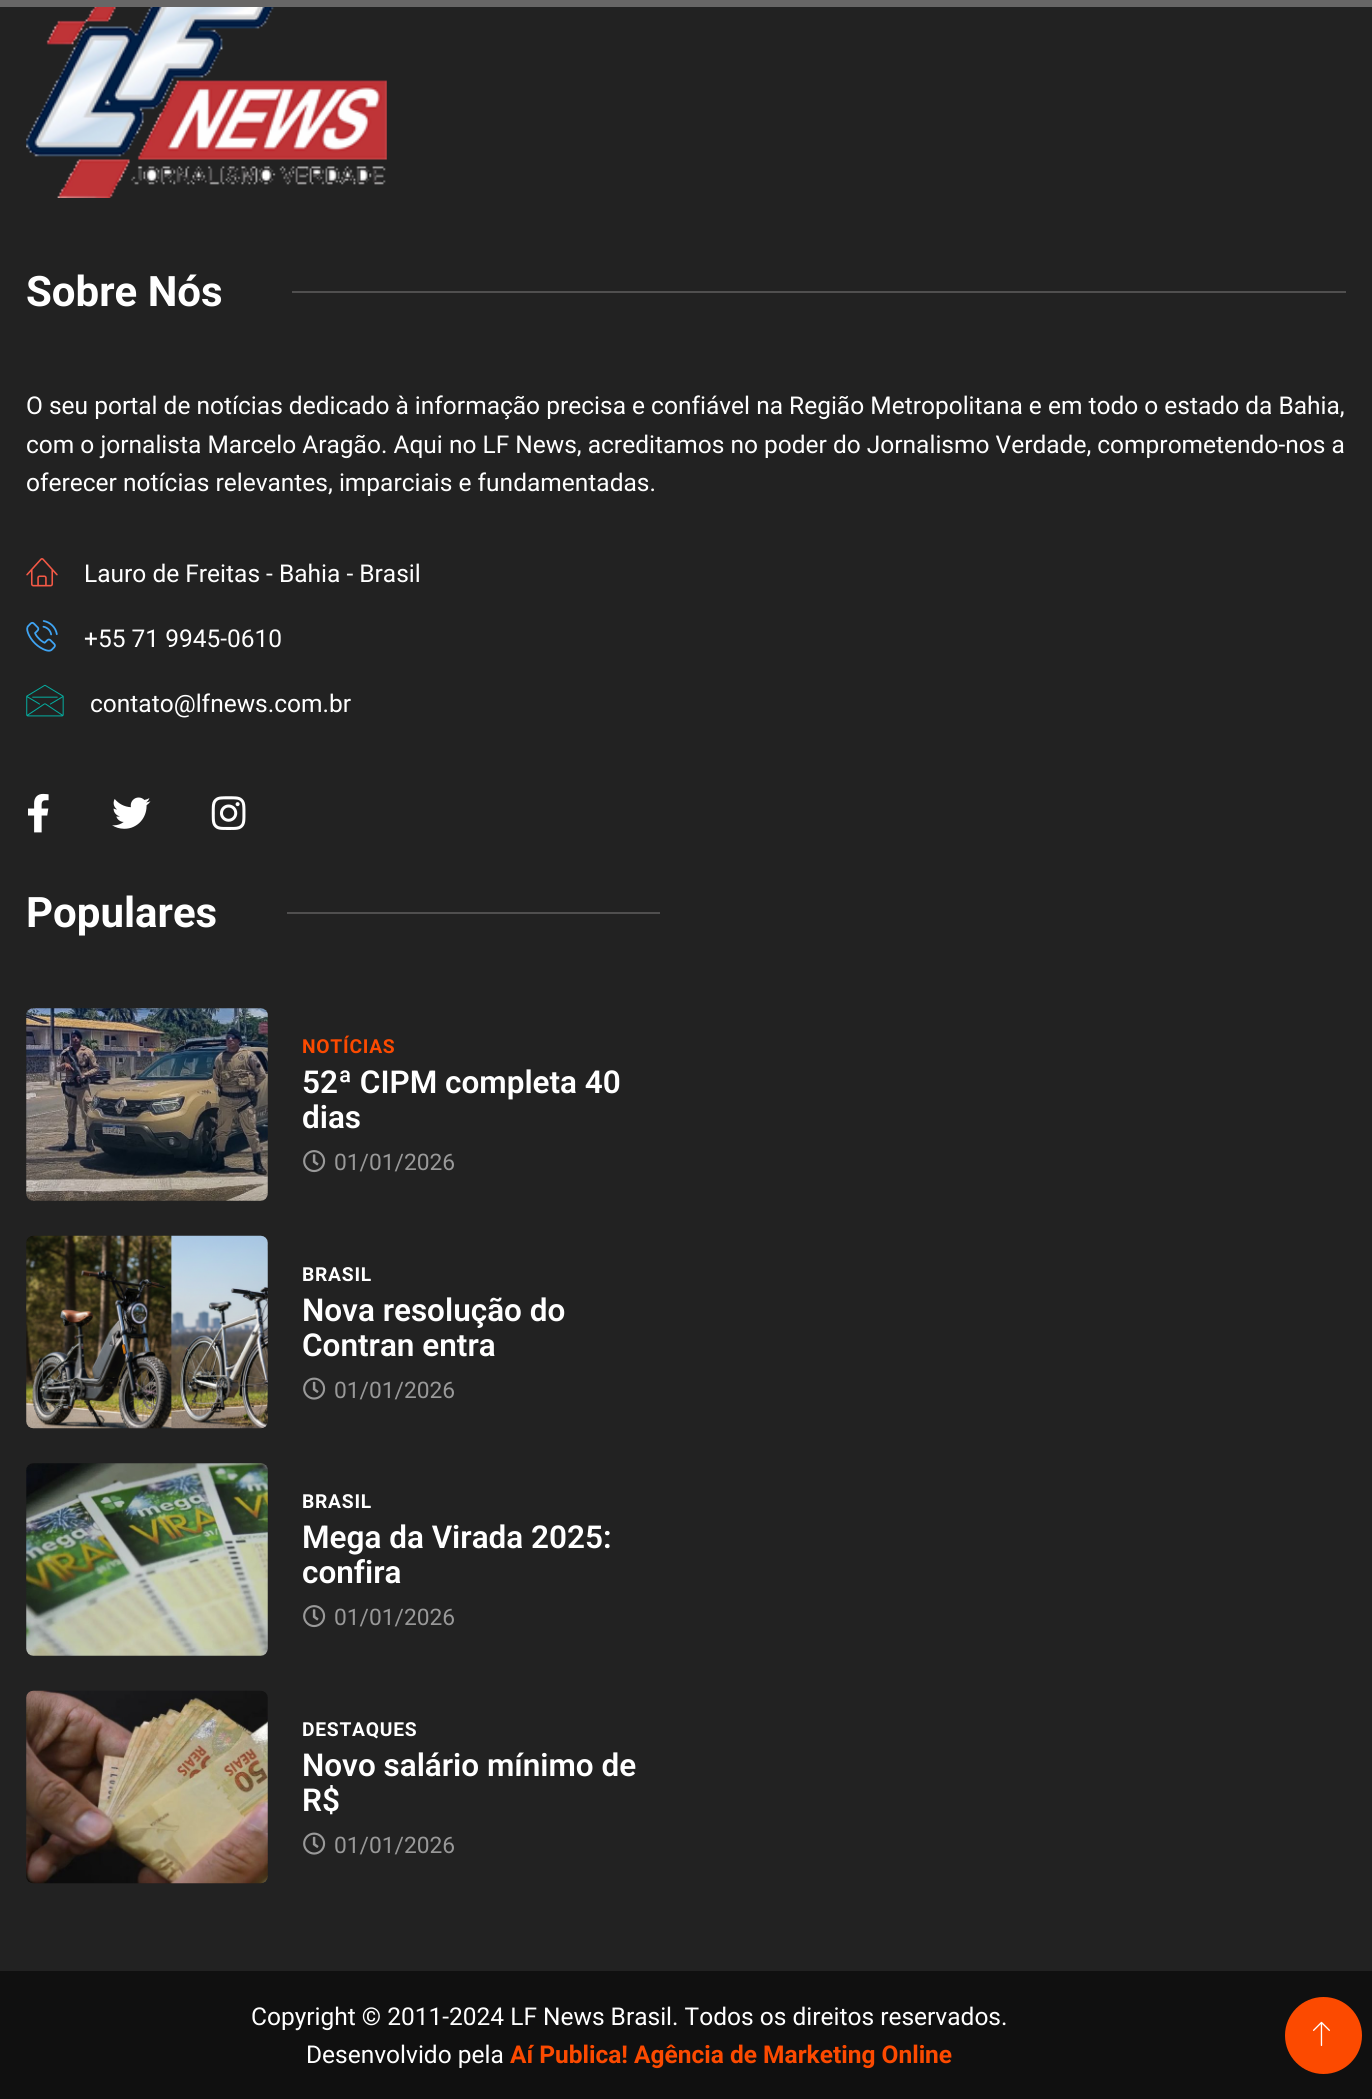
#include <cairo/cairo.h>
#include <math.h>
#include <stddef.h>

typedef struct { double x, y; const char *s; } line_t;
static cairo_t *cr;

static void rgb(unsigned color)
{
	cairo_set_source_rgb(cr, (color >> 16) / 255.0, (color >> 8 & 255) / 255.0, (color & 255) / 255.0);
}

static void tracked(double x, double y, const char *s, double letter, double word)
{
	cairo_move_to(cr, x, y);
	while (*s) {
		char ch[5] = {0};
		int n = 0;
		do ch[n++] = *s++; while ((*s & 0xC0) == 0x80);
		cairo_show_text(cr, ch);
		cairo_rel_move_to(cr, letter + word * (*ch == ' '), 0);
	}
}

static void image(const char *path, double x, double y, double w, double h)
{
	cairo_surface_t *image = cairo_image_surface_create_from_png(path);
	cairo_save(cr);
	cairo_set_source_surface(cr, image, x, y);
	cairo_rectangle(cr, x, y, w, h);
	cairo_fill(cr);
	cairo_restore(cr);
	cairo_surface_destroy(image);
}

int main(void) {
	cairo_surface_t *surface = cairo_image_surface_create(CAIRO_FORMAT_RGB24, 1372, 2099);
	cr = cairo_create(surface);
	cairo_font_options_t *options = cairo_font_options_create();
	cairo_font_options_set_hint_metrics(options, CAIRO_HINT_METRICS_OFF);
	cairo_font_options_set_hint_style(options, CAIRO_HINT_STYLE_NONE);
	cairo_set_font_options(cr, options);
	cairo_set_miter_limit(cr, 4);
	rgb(0x222222);
	cairo_paint(cr);
	rgb(0x676666);
	cairo_rectangle(cr, 0, 0, 1372, 7);
	cairo_fill(cr);
	image("img/1.png", 26, 7, 361, 191);
	rgb(0x504f4f);
	cairo_rectangle(cr, 292, 291, 1054, 2);
	cairo_fill(cr);
	image("img/2.png", 26, 558, 32, 29);
	image("img/3.png", 26, 620, 32, 32);
	image("img/4.png", 26, 684, 38, 33);
	image("img/5.png", 28, 793, 21, 40);
	image("img/6.png", 112, 797, 39, 32);
	image("img/7.png", 211, 796, 35, 34);
	cairo_rectangle(cr, 287, 912, 373, 2);
	cairo_fill(cr);
	image("img/8.png", 26, 1008, 242, 193);
	image("img/9.png", 303, 1150, 23, 23);
	image("img/10.png", 26, 1235, 242, 194);
	image("img/11.png", 303, 1377, 23, 23);
	image("img/12.png", 26, 1463, 242, 193);
	image("img/9.png", 303, 1605, 23, 23);
	image("img/13.png", 26, 1690, 242, 194);
	image("img/11.png", 303, 1832, 23, 23);
	rgb(0x101010);
	cairo_rectangle(cr, 0, 1971, 1372, 128);
	cairo_fill(cr);
	rgb(0xfc4a00);
	cairo_arc(cr, 1323.5, 2035.5, 38.5, 0, 2 * M_PI);
	cairo_fill(cr);
	image("img/14.png", 1313, 2021, 17, 25);
	cairo_select_font_face(cr, "Roboto", CAIRO_FONT_SLANT_NORMAL, CAIRO_FONT_WEIGHT_BOLD);
	cairo_set_font_size(cr, 42);
	rgb(0xffffff);
	cairo_move_to(cr, 26, 306);
	cairo_show_text(cr, "Sobre Nós");
	cairo_select_font_face(cr, "Roboto", CAIRO_FONT_SLANT_NORMAL, CAIRO_FONT_WEIGHT_NORMAL);
	cairo_set_font_size(cr, 24.5);
	{
		static const line_t items[] = {
			{26, 414, "O seu portal de notícias dedicado à informação precisa e confiável na Região Metropolitana e em todo o estado da Bahia,"},
			{26, 453, "com o jornalista Marcelo Aragão. Aqui no LF News, acreditamos no poder do Jornalismo Verdade, comprometendo-nos a"},
			{26, 491, "oferecer notícias relevantes, imparciais e fundamentadas."},
			{84, 582, "Lauro de Freitas - Bahia - Brasil"},
			{84, 647, "+55 71 9945-0610"},
			{90, 712, "contato@lfnews.com.br"},
		};
		for (size_t i = 0; i < sizeof items / sizeof *items; i++) {
			cairo_move_to(cr, items[i].x, items[i].y);
			cairo_show_text(cr, items[i].s);
		}
	}
	cairo_select_font_face(cr, "Roboto", CAIRO_FONT_SLANT_NORMAL, CAIRO_FONT_WEIGHT_BOLD);
	cairo_set_font_size(cr, 42);
	cairo_move_to(cr, 26, 927);
	cairo_show_text(cr, "Populares");
	cairo_set_font_size(cr, 19.25);
	rgb(0xfc4a00);
	tracked(302, 1053, "NOTÍCIAS", 0.75, 0);
	cairo_select_font_face(cr, "Roboto SemiBold", CAIRO_FONT_SLANT_NORMAL, CAIRO_FONT_WEIGHT_NORMAL);
	cairo_set_font_size(cr, 31.5);
	rgb(0xffffff);
	cairo_move_to(cr, 302, 1093);
	cairo_show_text(cr, "52ª CIPM completa 40");
	cairo_move_to(cr, 302, 1128);
	cairo_show_text(cr, "dias");
	cairo_select_font_face(cr, "Roboto", CAIRO_FONT_SLANT_NORMAL, CAIRO_FONT_WEIGHT_NORMAL);
	cairo_set_font_size(cr, 22.75);
	rgb(0x999999);
	cairo_move_to(cr, 334, 1170);
	cairo_show_text(cr, "01/01/2026");
	cairo_select_font_face(cr, "Roboto", CAIRO_FONT_SLANT_NORMAL, CAIRO_FONT_WEIGHT_BOLD);
	cairo_set_font_size(cr, 19.25);
	rgb(0xffffff);
	tracked(302, 1281, "BRASIL", 0.75, 0);
	cairo_select_font_face(cr, "Roboto SemiBold", CAIRO_FONT_SLANT_NORMAL, CAIRO_FONT_WEIGHT_NORMAL);
	cairo_set_font_size(cr, 31.5);
	cairo_move_to(cr, 302, 1321);
	cairo_show_text(cr, "Nova resolução do");
	cairo_move_to(cr, 302, 1356);
	cairo_show_text(cr, "Contran entra");
	cairo_select_font_face(cr, "Roboto", CAIRO_FONT_SLANT_NORMAL, CAIRO_FONT_WEIGHT_NORMAL);
	cairo_set_font_size(cr, 22.75);
	rgb(0x999999);
	cairo_move_to(cr, 334, 1398);
	cairo_show_text(cr, "01/01/2026");
	cairo_select_font_face(cr, "Roboto", CAIRO_FONT_SLANT_NORMAL, CAIRO_FONT_WEIGHT_BOLD);
	cairo_set_font_size(cr, 19.25);
	rgb(0xffffff);
	tracked(302, 1508, "BRASIL", 0.75, 0);
	cairo_select_font_face(cr, "Roboto SemiBold", CAIRO_FONT_SLANT_NORMAL, CAIRO_FONT_WEIGHT_NORMAL);
	cairo_set_font_size(cr, 31.5);
	cairo_move_to(cr, 302, 1548);
	cairo_show_text(cr, "Mega da Virada 2025:");
	cairo_move_to(cr, 302, 1583);
	cairo_show_text(cr, "confira");
	cairo_select_font_face(cr, "Roboto", CAIRO_FONT_SLANT_NORMAL, CAIRO_FONT_WEIGHT_NORMAL);
	cairo_set_font_size(cr, 22.75);
	rgb(0x999999);
	cairo_move_to(cr, 334, 1625);
	cairo_show_text(cr, "01/01/2026");
	cairo_select_font_face(cr, "Roboto", CAIRO_FONT_SLANT_NORMAL, CAIRO_FONT_WEIGHT_BOLD);
	cairo_set_font_size(cr, 19.25);
	rgb(0xffffff);
	tracked(302, 1736, "DESTAQUES", 0.75, 0);
	cairo_select_font_face(cr, "Roboto SemiBold", CAIRO_FONT_SLANT_NORMAL, CAIRO_FONT_WEIGHT_NORMAL);
	cairo_set_font_size(cr, 31.5);
	cairo_move_to(cr, 302, 1776);
	cairo_show_text(cr, "Novo salário mínimo de");
	cairo_move_to(cr, 302, 1811);
	cairo_show_text(cr, "R$");
	cairo_select_font_face(cr, "Roboto", CAIRO_FONT_SLANT_NORMAL, CAIRO_FONT_WEIGHT_NORMAL);
	cairo_set_font_size(cr, 22.75);
	rgb(0x999999);
	cairo_move_to(cr, 334, 1853);
	cairo_show_text(cr, "01/01/2026");
	cairo_set_font_size(cr, 24.5);
	rgb(0xffffff);
	cairo_move_to(cr, 251, 2025);
	cairo_show_text(cr, "Copyright © 2011-2024 LF News Brasil. Todos os direitos reservados.");
	cairo_move_to(cr, 306, 2063);
	cairo_show_text(cr, "Desenvolvido pela");
	cairo_select_font_face(cr, "Roboto", CAIRO_FONT_SLANT_NORMAL, CAIRO_FONT_WEIGHT_BOLD);
	rgb(0xfc4a00);
	cairo_move_to(cr, 510, 2063);
	cairo_show_text(cr, "Aí Publica! Agência de Marketing Online");
	cairo_surface_write_to_png(surface, "page.png");
	cairo_font_options_destroy(options);
	cairo_destroy(cr);
	cairo_surface_destroy(surface);
	return 0;
}
